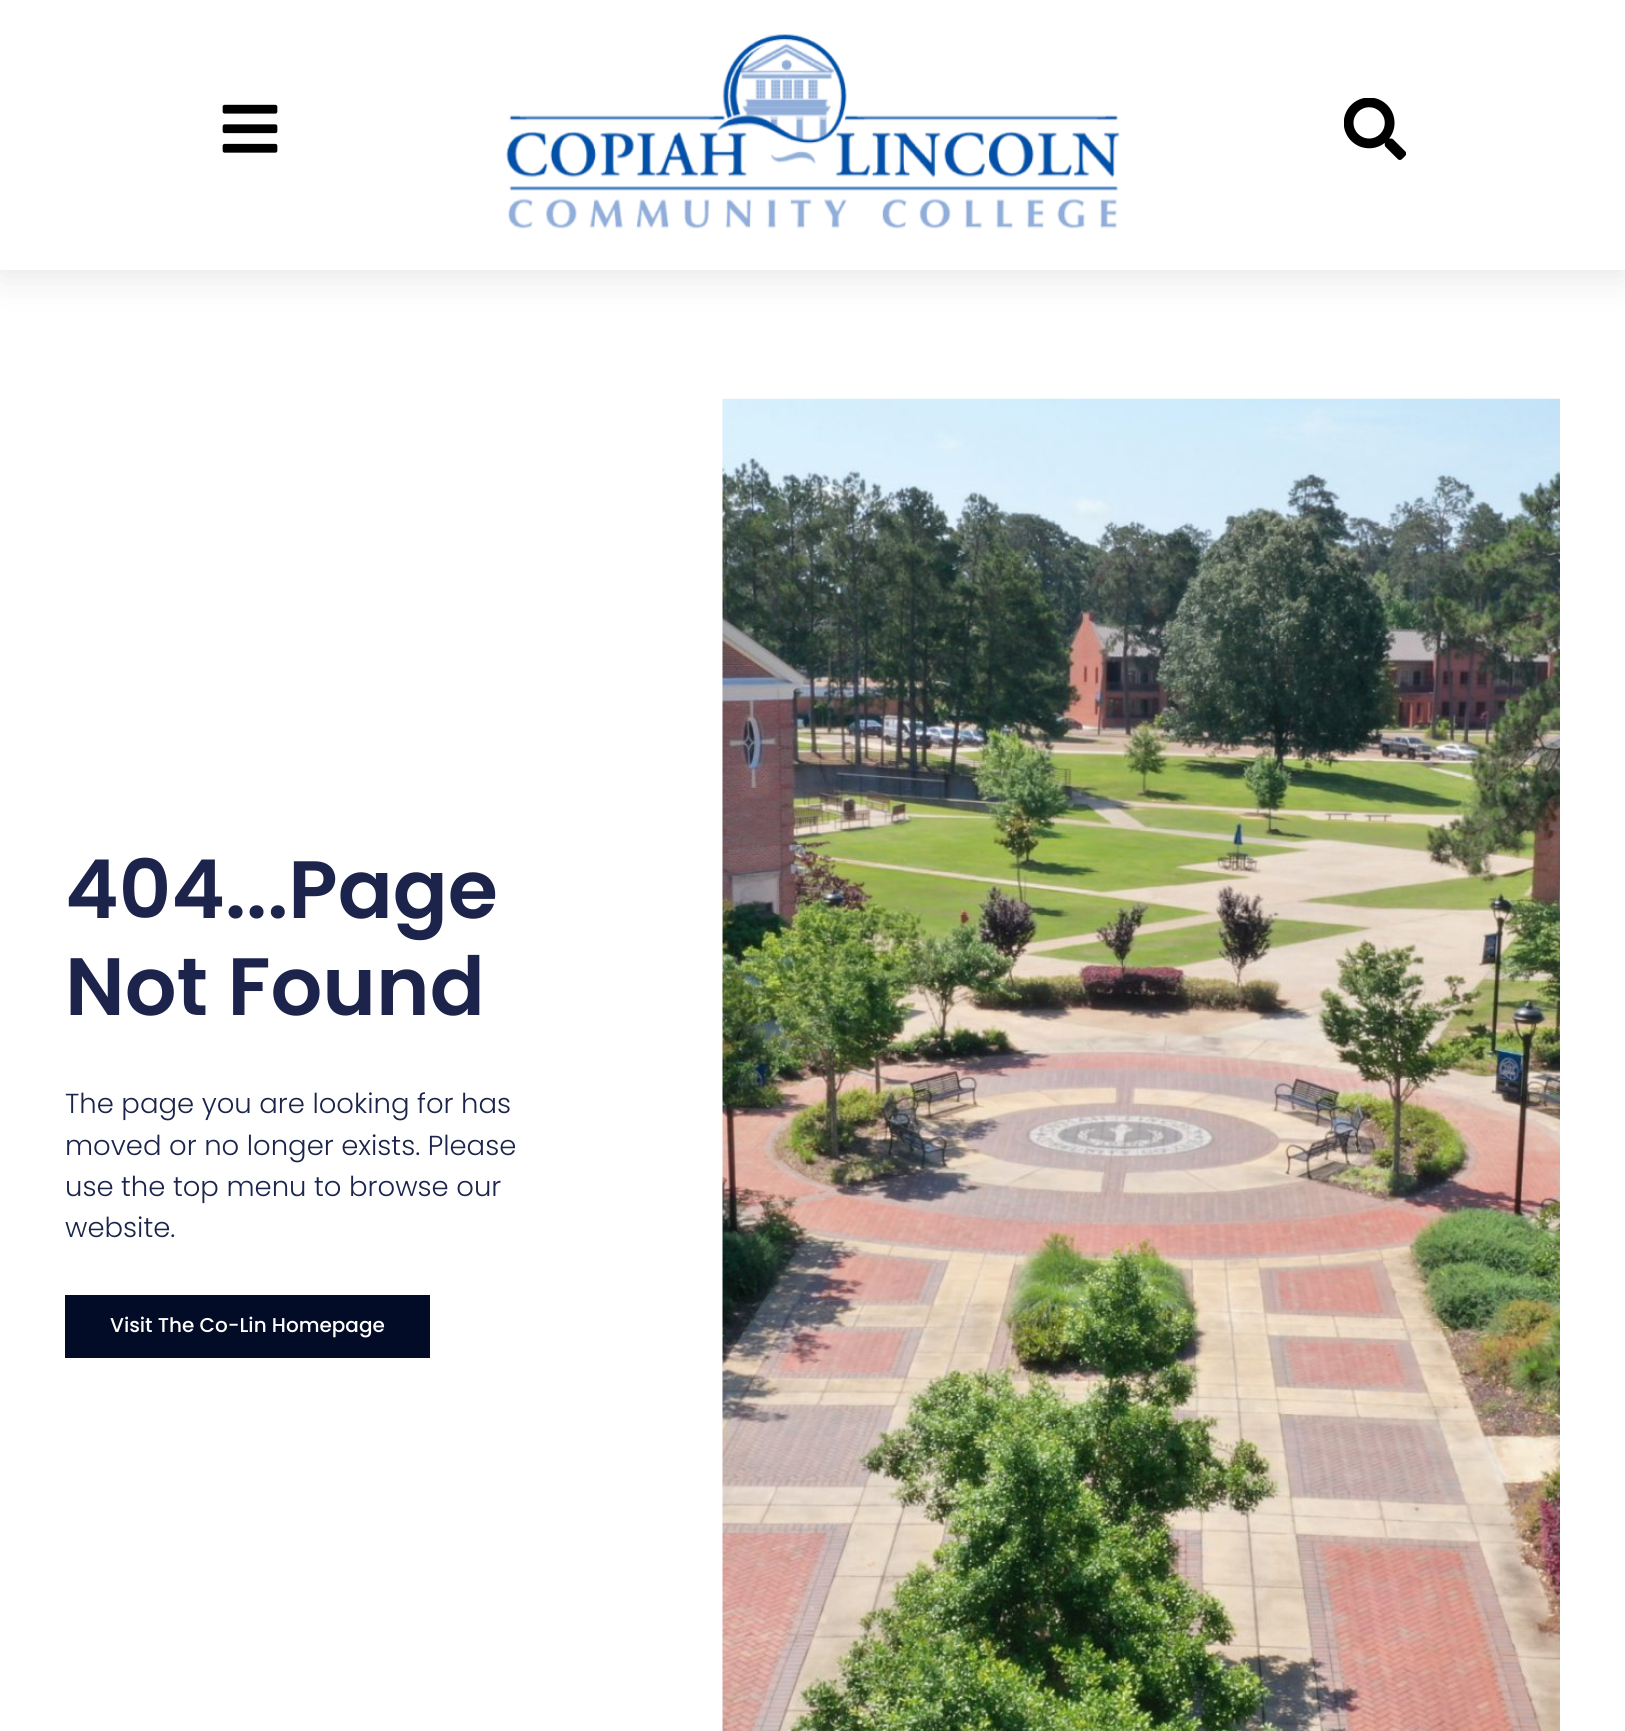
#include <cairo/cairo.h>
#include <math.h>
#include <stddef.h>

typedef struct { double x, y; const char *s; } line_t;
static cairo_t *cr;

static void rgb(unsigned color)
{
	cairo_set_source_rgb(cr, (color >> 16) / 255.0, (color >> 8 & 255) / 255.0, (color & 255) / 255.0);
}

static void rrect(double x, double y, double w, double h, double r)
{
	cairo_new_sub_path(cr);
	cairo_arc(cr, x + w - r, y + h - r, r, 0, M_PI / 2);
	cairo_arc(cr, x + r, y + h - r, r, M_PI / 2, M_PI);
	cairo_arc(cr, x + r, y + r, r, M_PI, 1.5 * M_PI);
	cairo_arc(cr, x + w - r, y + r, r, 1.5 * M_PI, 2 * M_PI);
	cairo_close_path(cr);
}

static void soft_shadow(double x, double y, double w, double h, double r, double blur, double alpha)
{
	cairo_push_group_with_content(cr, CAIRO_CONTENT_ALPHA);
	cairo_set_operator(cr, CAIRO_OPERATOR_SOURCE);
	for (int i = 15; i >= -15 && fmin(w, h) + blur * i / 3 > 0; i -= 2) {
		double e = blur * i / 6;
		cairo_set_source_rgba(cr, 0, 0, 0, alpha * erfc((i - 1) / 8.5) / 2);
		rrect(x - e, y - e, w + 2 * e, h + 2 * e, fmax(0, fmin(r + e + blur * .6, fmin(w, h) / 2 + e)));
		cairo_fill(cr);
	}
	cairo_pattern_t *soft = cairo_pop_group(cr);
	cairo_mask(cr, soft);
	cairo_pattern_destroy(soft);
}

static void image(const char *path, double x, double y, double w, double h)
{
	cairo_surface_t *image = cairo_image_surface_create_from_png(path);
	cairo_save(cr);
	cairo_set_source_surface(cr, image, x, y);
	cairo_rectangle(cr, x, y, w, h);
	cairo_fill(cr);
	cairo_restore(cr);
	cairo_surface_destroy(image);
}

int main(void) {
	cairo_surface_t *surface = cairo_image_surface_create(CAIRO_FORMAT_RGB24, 1625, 1731);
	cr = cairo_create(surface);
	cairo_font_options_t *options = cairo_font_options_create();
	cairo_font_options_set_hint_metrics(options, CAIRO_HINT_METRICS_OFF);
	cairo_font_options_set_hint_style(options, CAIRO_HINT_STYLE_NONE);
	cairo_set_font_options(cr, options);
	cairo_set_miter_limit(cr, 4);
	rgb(0xffffff);
	cairo_paint(cr);
	rgb(0x000000);
	soft_shadow(0, 6, 1625, 270, 0, 19, 0.1);
	rgb(0xffffff);
	cairo_rectangle(cr, 0, 0, 1625, 270);
	cairo_fill(cr);
	image("img/1.png", 222, 104, 56, 49);
	image("img/2.png", 506, 34, 614, 195);
	image("img/3.png", 1344, 98, 62, 62);
	rgb(0x030c26);
	cairo_rectangle(cr, 65, 1295, 365, 63);
	cairo_fill(cr);
	image("img/4.png", 722, 398, 838, 1333);
	cairo_select_font_face(cr, "Poppins SemiBold", CAIRO_FONT_SLANT_NORMAL, CAIRO_FONT_WEIGHT_NORMAL);
	cairo_set_font_size(cr, 81.25);
	rgb(0x1c244b);
	cairo_move_to(cr, 65, 918);
	cairo_show_text(cr, "404...Page");
	cairo_move_to(cr, 65, 1015);
	cairo_show_text(cr, "Not Found");
	cairo_select_font_face(cr, "Poppins Light", CAIRO_FONT_SLANT_NORMAL, CAIRO_FONT_WEIGHT_NORMAL);
	cairo_set_font_size(cr, 27.5);
	{
		static const line_t items[] = {
			{65, 1113, "The page you are looking for has"},
			{65, 1155, "moved or no longer exists. Please"},
			{65, 1196, "use the top menu to browse our"},
			{65, 1237, "website."},
		};
		for (size_t i = 0; i < sizeof items / sizeof *items; i++) {
			cairo_move_to(cr, items[i].x, items[i].y);
			cairo_show_text(cr, items[i].s);
		}
	}
	cairo_select_font_face(cr, "Poppins Medium", CAIRO_FONT_SLANT_NORMAL, CAIRO_FONT_WEIGHT_NORMAL);
	cairo_set_font_size(cr, 20);
	rgb(0xffffff);
	cairo_move_to(cr, 110, 1332);
	cairo_show_text(cr, "Visit The Co-Lin Homepage");
	cairo_surface_write_to_png(surface, "page.png");
	cairo_font_options_destroy(options);
	cairo_destroy(cr);
	cairo_surface_destroy(surface);
	return 0;
}
